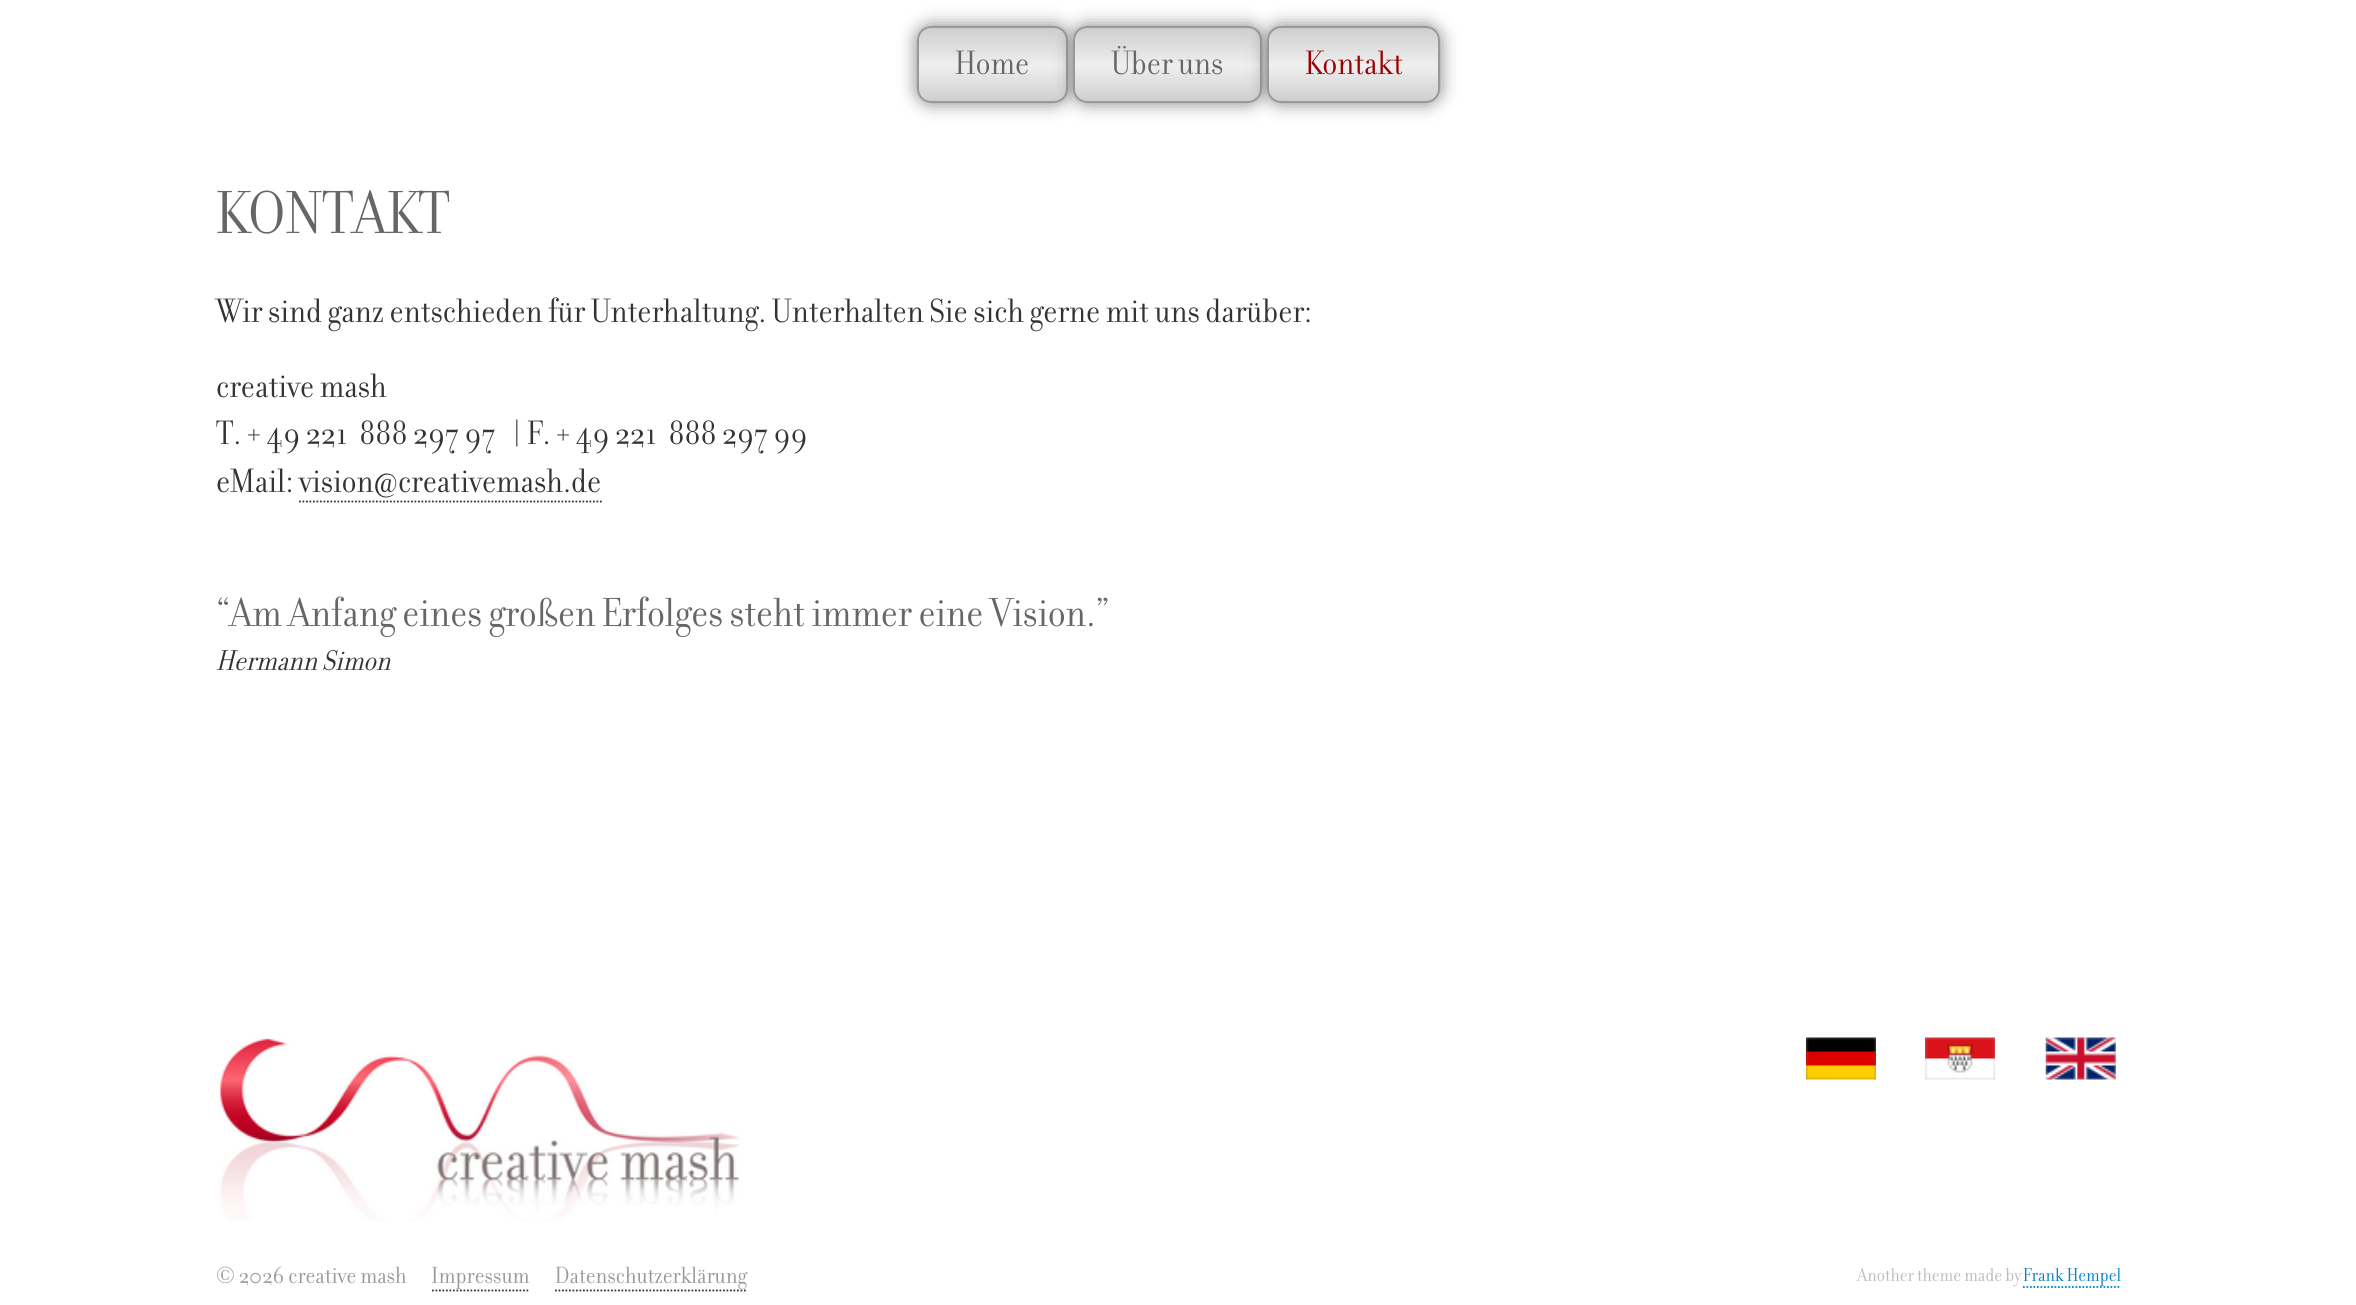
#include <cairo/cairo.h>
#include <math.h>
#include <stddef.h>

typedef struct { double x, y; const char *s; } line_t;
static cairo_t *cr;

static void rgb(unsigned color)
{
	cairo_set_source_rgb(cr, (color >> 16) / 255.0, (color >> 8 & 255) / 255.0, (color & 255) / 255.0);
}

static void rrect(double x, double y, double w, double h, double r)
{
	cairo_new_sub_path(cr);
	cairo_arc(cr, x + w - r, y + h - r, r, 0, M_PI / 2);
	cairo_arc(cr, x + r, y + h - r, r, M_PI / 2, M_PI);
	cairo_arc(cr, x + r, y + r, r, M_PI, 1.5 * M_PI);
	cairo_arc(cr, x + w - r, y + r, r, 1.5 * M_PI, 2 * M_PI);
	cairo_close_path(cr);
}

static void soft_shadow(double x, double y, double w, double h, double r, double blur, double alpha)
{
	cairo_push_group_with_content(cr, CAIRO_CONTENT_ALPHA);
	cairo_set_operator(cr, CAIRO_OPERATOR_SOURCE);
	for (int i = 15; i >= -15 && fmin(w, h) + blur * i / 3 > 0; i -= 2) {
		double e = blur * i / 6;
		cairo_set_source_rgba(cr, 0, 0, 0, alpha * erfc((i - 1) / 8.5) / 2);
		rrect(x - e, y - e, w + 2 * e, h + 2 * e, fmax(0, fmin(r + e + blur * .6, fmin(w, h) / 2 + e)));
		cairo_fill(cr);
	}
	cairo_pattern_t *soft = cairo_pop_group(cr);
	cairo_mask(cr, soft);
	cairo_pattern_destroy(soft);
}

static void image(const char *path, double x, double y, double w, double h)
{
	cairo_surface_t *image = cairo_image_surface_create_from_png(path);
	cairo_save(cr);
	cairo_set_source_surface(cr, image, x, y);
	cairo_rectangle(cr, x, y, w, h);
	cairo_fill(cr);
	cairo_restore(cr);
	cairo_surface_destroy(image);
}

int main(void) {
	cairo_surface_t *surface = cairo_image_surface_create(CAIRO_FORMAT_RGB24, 2356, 1305);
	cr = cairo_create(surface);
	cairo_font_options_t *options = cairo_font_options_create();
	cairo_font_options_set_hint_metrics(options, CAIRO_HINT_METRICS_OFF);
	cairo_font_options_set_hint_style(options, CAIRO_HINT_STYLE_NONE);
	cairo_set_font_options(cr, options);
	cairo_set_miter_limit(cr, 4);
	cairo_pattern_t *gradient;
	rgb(0xffffff);
	cairo_paint(cr);
	rgb(0x808080);
	soft_shadow(917, 26, 151, 77, 14, 9, 1);
	cairo_save(cr);
	rrect(917, 26, 151, 77, 14);
	cairo_clip(cr);
	gradient = cairo_pattern_create_linear(992, 28, 992, 102);
	cairo_pattern_add_color_stop_rgba(gradient, 0, 0.808, 0.808, 0.808, 1);
	cairo_pattern_add_color_stop_rgba(gradient, 0.51, 0.937, 0.937, 0.937, 1);
	cairo_pattern_add_color_stop_rgba(gradient, 1, 0.808, 0.808, 0.808, 1);
	cairo_set_source(cr, gradient);
	cairo_pattern_destroy(gradient);
	cairo_rectangle(cr, 917, 28, 151, 74);
	cairo_fill(cr);
	cairo_restore(cr);
	rrect(918, 27, 149, 75, 13);
	rgb(0x999999);
	cairo_stroke(cr);
	rgb(0x808080);
	soft_shadow(1073, 26, 189, 77, 14, 9, 1);
	cairo_save(cr);
	rrect(1073, 26, 189, 77, 14);
	cairo_clip(cr);
	gradient = cairo_pattern_create_linear(1167, 28, 1167, 102);
	cairo_pattern_add_color_stop_rgba(gradient, 0, 0.808, 0.808, 0.808, 1);
	cairo_pattern_add_color_stop_rgba(gradient, 0.51, 0.937, 0.937, 0.937, 1);
	cairo_pattern_add_color_stop_rgba(gradient, 1, 0.808, 0.808, 0.808, 1);
	cairo_set_source(cr, gradient);
	cairo_pattern_destroy(gradient);
	cairo_rectangle(cr, 1073, 28, 189, 74);
	cairo_fill(cr);
	cairo_restore(cr);
	rrect(1074, 27, 187, 75, 13);
	rgb(0x999999);
	cairo_stroke(cr);
	rgb(0x808080);
	soft_shadow(1267, 26, 173, 77, 14, 9, 1);
	cairo_save(cr);
	rrect(1267, 26, 173, 77, 14);
	cairo_clip(cr);
	gradient = cairo_pattern_create_linear(1354, 28, 1354, 102);
	cairo_pattern_add_color_stop_rgba(gradient, 0, 0.808, 0.808, 0.808, 1);
	cairo_pattern_add_color_stop_rgba(gradient, 0.51, 0.937, 0.937, 0.937, 1);
	cairo_pattern_add_color_stop_rgba(gradient, 1, 0.808, 0.808, 0.808, 1);
	cairo_set_source(cr, gradient);
	cairo_pattern_destroy(gradient);
	cairo_rectangle(cr, 1267, 28, 173, 74);
	cairo_fill(cr);
	cairo_restore(cr);
	rrect(1268, 27, 171, 75, 13);
	rgb(0x999999);
	cairo_stroke(cr);
	cairo_new_path(cr);
	cairo_move_to(cr, 299, 501.5);
	cairo_line_to(cr, 602, 501.5);
	rgb(0x333333);
	cairo_set_line_width(cr, 1.8);
	cairo_set_dash(cr, (double[]){1.75, 1.75}, 2, 0);
	cairo_stroke(cr);
	image("img/1.png", 217, 1037, 523, 184);
	image("img/2.png", 1806, 1037, 70, 43);
	image("img/3.png", 1925, 1037, 70, 43);
	image("img/4.png", 2045, 1037, 71, 43);
	cairo_new_path(cr);
	cairo_move_to(cr, 432, 1290.5);
	cairo_line_to(cr, 530, 1290.5);
	cairo_stroke(cr);
	cairo_new_path(cr);
	cairo_move_to(cr, 555, 1290.5);
	cairo_line_to(cr, 747, 1290.5);
	cairo_stroke(cr);
	cairo_new_path(cr);
	cairo_move_to(cr, 2023, 1287);
	cairo_line_to(cr, 2121, 1287);
	rgb(0x0084c6);
	cairo_stroke(cr);
	cairo_select_font_face(cr, "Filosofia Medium", CAIRO_FONT_SLANT_NORMAL, CAIRO_FONT_WEIGHT_NORMAL);
	cairo_set_font_size(cr, 36.4);
	rgb(0x666666);
	cairo_move_to(cr, 955, 74);
	cairo_show_text(cr, "Home");
	cairo_move_to(cr, 1111, 74);
	cairo_show_text(cr, "Über uns");
	rgb(0x990003);
	cairo_move_to(cr, 1305, 74);
	cairo_show_text(cr, "Kontakt");
	cairo_set_font_size(cr, 65.5);
	rgb(0x666666);
	cairo_move_to(cr, 216, 233);
	cairo_show_text(cr, "KONTAKT");
	cairo_set_font_size(cr, 36.4);
	rgb(0x333333);
	{
		static const line_t items[] = {
			{216, 322, "Wir sind ganz entschieden für Unterhaltung. Unterhalten Sie sich gerne mit uns darüber:"},
			{216, 397, "creative mash"},
			{216, 444, "T. + 49 221  888 297 97   | F. + 49 221  888 297 99"},
			{216, 492, "eMail: vision@creativemash.de"},
		};
		for (size_t i = 0; i < sizeof items / sizeof *items; i++) {
			cairo_move_to(cr, items[i].x, items[i].y);
			cairo_show_text(cr, items[i].s);
		}
	}
	cairo_set_font_size(cr, 43.7);
	rgb(0x666666);
	cairo_move_to(cr, 216, 626);
	cairo_show_text(cr, "“Am Anfang eines großen Erfolges steht immer eine Vision.”");
	cairo_select_font_face(cr, "Filosofia Medium", CAIRO_FONT_SLANT_ITALIC, CAIRO_FONT_WEIGHT_NORMAL);
	cairo_set_font_size(cr, 31);
	rgb(0x333333);
	cairo_move_to(cr, 216, 670);
	cairo_show_text(cr, "Hermann Simon");
	cairo_select_font_face(cr, "Filosofia Medium", CAIRO_FONT_SLANT_NORMAL, CAIRO_FONT_WEIGHT_NORMAL);
	cairo_set_font_size(cr, 25.25);
	rgb(0x999999);
	{
		static const line_t items[] = {
			{216, 1283, "© 2026 creative mash"},
			{431, 1283, "Impressum"},
			{555, 1283, "Datenschutzerklärung"},
		};
		for (size_t i = 0; i < sizeof items / sizeof *items; i++) {
			cairo_move_to(cr, items[i].x, items[i].y);
			cairo_show_text(cr, items[i].s);
		}
	}
	cairo_set_font_size(cr, 20.25);
	rgb(0xbbbbbb);
	cairo_move_to(cr, 1857, 1281);
	cairo_show_text(cr, "Another theme made by");
	rgb(0x0084c6);
	cairo_move_to(cr, 2023, 1281);
	cairo_show_text(cr, "Frank Hempel");
	cairo_surface_write_to_png(surface, "page.png");
	cairo_font_options_destroy(options);
	cairo_destroy(cr);
	cairo_surface_destroy(surface);
	return 0;
}
